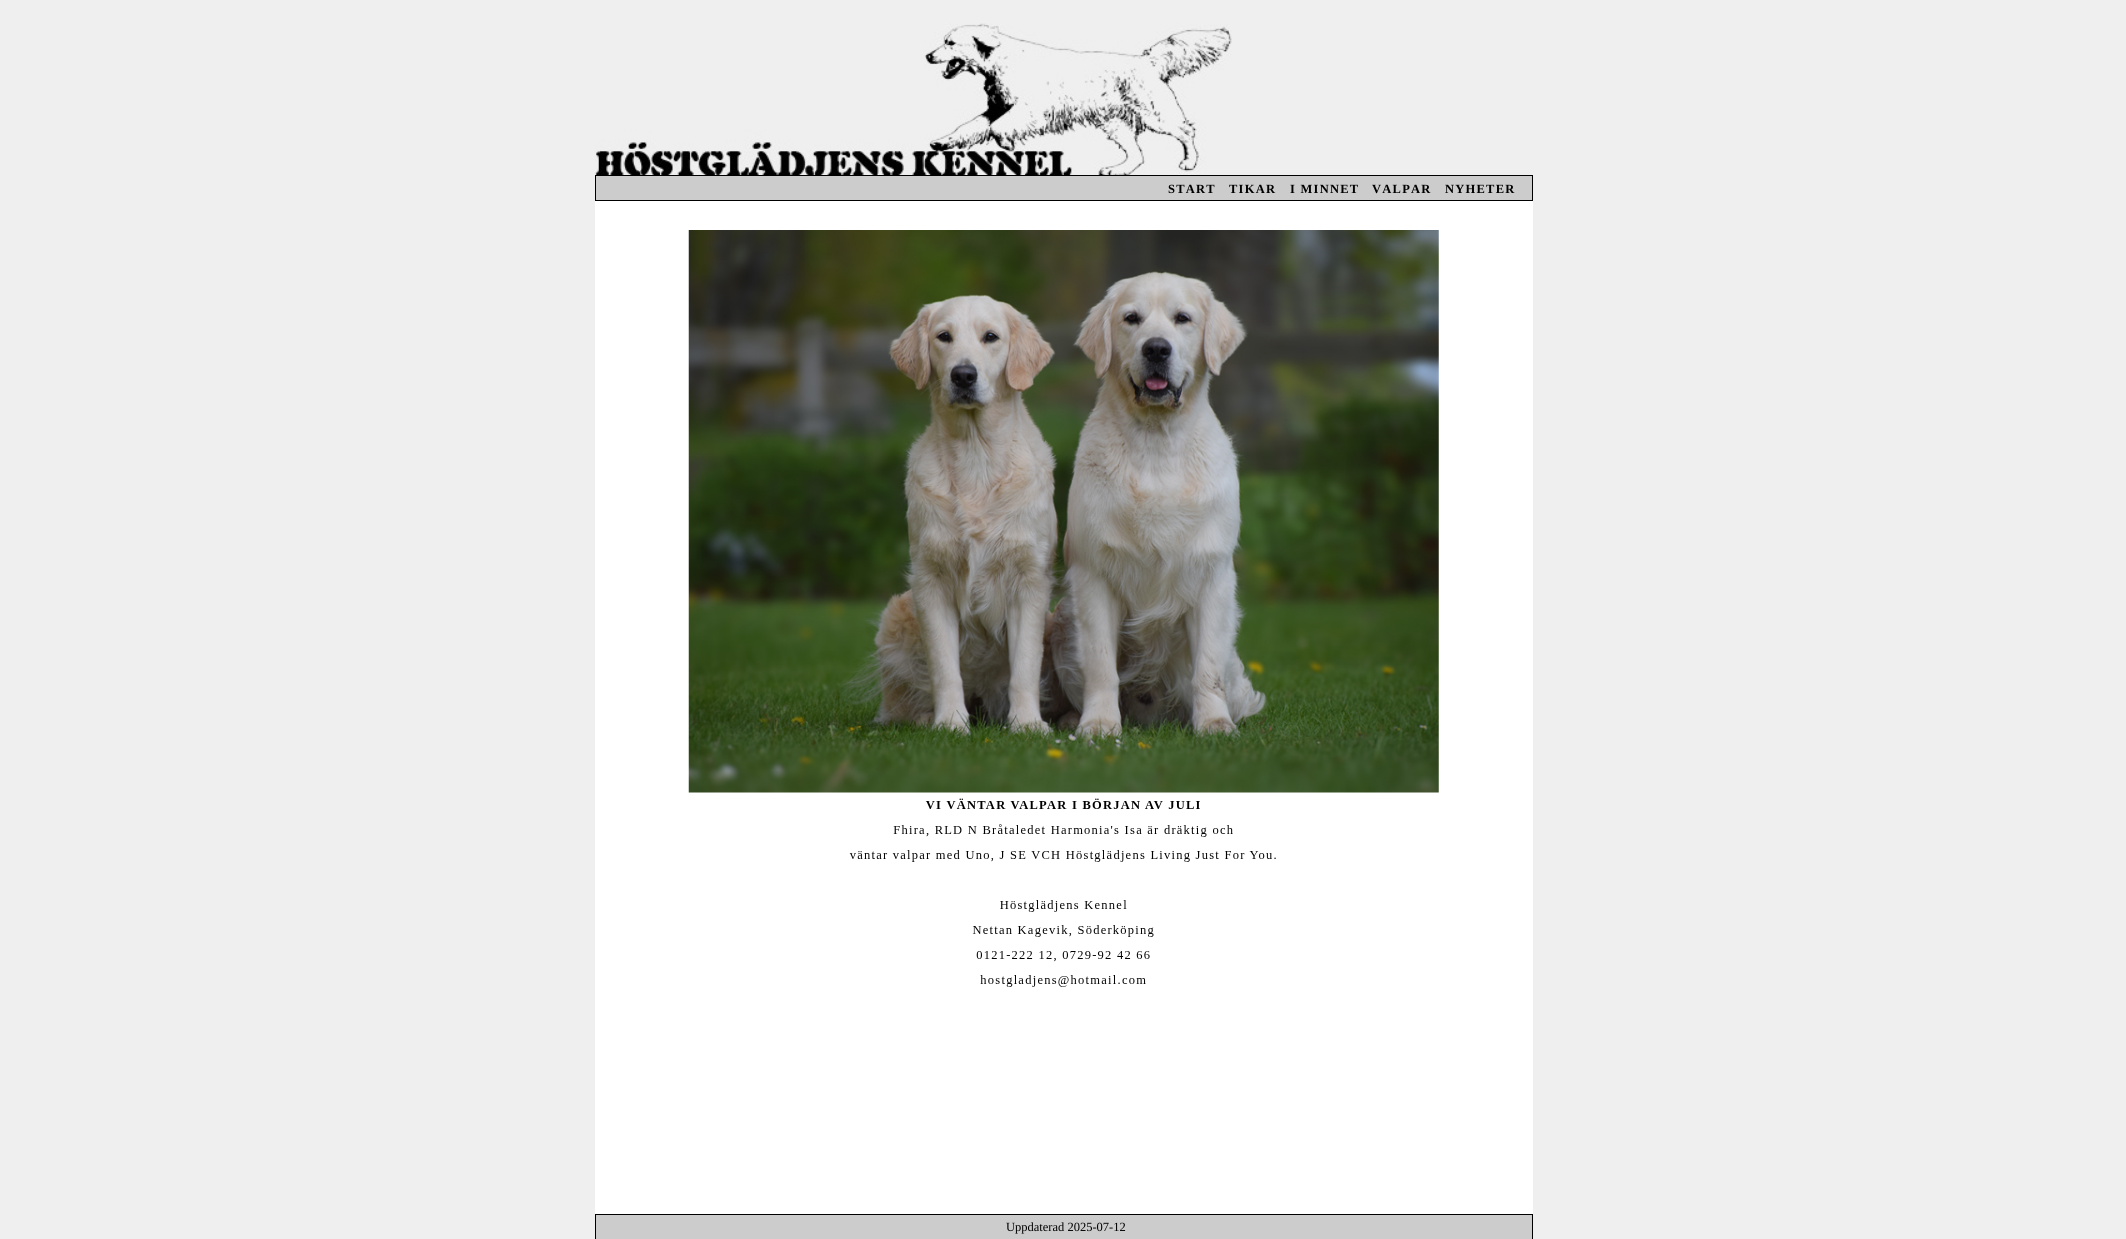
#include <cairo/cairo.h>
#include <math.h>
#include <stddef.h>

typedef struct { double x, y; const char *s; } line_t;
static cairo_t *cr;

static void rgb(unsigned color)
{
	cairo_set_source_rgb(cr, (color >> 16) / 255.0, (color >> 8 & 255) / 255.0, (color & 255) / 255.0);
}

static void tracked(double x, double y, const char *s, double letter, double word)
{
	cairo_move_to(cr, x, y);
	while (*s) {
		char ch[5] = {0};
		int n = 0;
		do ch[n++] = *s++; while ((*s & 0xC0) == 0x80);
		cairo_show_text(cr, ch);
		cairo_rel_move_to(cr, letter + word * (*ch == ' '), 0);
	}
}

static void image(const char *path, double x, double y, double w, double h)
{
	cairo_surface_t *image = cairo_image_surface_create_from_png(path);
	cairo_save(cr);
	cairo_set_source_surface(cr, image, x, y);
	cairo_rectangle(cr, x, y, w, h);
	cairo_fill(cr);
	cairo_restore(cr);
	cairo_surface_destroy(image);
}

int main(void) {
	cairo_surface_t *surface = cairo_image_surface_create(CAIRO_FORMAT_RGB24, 2126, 1239);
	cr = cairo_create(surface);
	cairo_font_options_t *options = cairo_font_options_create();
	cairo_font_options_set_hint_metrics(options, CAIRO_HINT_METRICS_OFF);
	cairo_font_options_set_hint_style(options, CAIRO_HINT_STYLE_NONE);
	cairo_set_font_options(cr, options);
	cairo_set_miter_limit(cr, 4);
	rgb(0xefefef);
	cairo_paint(cr);
	image("img/1.png", 595, 23, 637, 152);
	rgb(0xcccccc);
	cairo_rectangle(cr, 595.5, 175.5, 937, 25);
	cairo_fill_preserve(cr);
	rgb(0x000000);
	cairo_set_line_width(cr, 1);
	cairo_stroke(cr);
	rgb(0xffffff);
	cairo_rectangle(cr, 595, 201, 938, 1013);
	cairo_fill(cr);
	image("img/2.png", 688, 230, 751, 757);
	rgb(0xcccccc);
	cairo_rectangle(cr, 595.5, 1214.5, 937, 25);
	cairo_fill_preserve(cr);
	rgb(0x000000);
	cairo_stroke(cr);
	cairo_select_font_face(cr, "Liberation Serif", CAIRO_FONT_SLANT_NORMAL, CAIRO_FONT_WEIGHT_BOLD);
	cairo_set_font_size(cr, 12.5);
	{
		static const line_t items[] = {
			{1168, 193, "START"},
			{1229, 193, "TIKAR"},
			{1290, 193, "I MINNET"},
			{1372, 193, "VALPAR"},
			{1445, 193, "NYHETER"},
		};
		for (size_t i = 0; i < sizeof items / sizeof *items; i++) {
			tracked(items[i].x, items[i].y, items[i].s, 1.25, 0);
		}
	}
	cairo_select_font_face(cr, "Liberation Serif", CAIRO_FONT_SLANT_NORMAL, CAIRO_FONT_WEIGHT_NORMAL);
	cairo_move_to(cr, 1006, 1231);
	cairo_show_text(cr, "Uppdaterad 2025-07-12");
	cairo_surface_write_to_png(surface, "page.png");
	cairo_font_options_destroy(options);
	cairo_destroy(cr);
	cairo_surface_destroy(surface);
	return 0;
}
